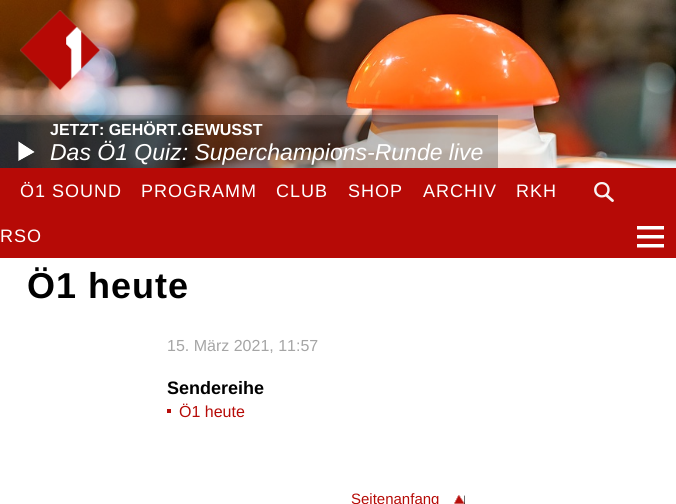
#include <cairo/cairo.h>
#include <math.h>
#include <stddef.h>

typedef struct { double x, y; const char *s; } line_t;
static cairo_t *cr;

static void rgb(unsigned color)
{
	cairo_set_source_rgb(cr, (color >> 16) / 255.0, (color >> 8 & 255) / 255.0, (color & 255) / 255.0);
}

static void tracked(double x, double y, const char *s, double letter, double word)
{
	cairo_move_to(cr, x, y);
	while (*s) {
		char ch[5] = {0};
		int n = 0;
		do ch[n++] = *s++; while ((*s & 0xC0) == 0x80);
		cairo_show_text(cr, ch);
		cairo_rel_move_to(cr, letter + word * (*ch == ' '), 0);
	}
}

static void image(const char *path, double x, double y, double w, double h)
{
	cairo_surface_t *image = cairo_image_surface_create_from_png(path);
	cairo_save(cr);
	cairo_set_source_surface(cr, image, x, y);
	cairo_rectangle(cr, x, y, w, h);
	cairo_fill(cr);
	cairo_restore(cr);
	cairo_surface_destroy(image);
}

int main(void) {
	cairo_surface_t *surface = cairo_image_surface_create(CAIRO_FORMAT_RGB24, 676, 504);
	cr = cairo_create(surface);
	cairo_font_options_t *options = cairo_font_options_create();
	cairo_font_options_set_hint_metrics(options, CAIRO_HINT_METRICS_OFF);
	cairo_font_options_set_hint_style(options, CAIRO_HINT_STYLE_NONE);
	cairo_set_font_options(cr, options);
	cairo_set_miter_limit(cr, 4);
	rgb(0xffffff);
	cairo_paint(cr);
	image("img/2.png", 0, 0, 676, 168);
	image("img/1.png", 20, 10, 80, 80);
	cairo_set_source_rgba(cr, 0, 0, 0, 0.25);
	cairo_rectangle(cr, 0, 115, 498, 53);
	cairo_fill(cr);
	image("img/3.png", 18, 141, 17, 20);
	rgb(0xb60a06);
	cairo_rectangle(cr, 0, 168, 676, 90);
	cairo_fill(cr);
	image("img/4.png", 594, 182, 20, 20);
	image("img/5.png", 637, 226, 27, 22);
	rgb(0xb70e0b);
	cairo_rectangle(cr, 167, 409, 4, 4);
	cairo_fill(cr);
	image("img/6.png", 454, 495, 11, 9);
	cairo_select_font_face(cr, "Liberation Sans", CAIRO_FONT_SLANT_NORMAL, CAIRO_FONT_WEIGHT_BOLD);
	cairo_set_font_size(cr, 16);
	rgb(0xffffff);
	cairo_move_to(cr, 50, 135);
	cairo_show_text(cr, "JETZT: GEHÖRT.GEWUSST");
	cairo_select_font_face(cr, "Liberation Sans", CAIRO_FONT_SLANT_ITALIC, CAIRO_FONT_WEIGHT_NORMAL);
	cairo_set_font_size(cr, 23);
	cairo_move_to(cr, 50, 160);
	cairo_show_text(cr, "Das Ö1 Quiz: Superchampions-Runde live");
	cairo_select_font_face(cr, "Liberation Sans", CAIRO_FONT_SLANT_NORMAL, CAIRO_FONT_WEIGHT_NORMAL);
	cairo_set_font_size(cr, 18);
	{
		static const line_t items[] = {
			{20, 197, "Ö1 SOUND"},
			{141, 197, "PROGRAMM"},
			{276, 197, "CLUB"},
			{348, 197, "SHOP"},
			{423, 197, "ARCHIV"},
			{516, 197, "RKH"},
			{0, 242, "RSO"},
		};
		for (size_t i = 0; i < sizeof items / sizeof *items; i++) {
			tracked(items[i].x, items[i].y, items[i].s, 1, 0);
		}
	}
	cairo_select_font_face(cr, "Liberation Sans", CAIRO_FONT_SLANT_NORMAL, CAIRO_FONT_WEIGHT_BOLD);
	cairo_set_font_size(cr, 36);
	rgb(0x000000);
	tracked(27, 298, "Ö1 heute", 1, 0);
	cairo_select_font_face(cr, "Liberation Sans", CAIRO_FONT_SLANT_NORMAL, CAIRO_FONT_WEIGHT_NORMAL);
	cairo_set_font_size(cr, 16);
	rgb(0xa5a5a5);
	cairo_move_to(cr, 167, 351);
	cairo_show_text(cr, "15. März 2021, 11:57");
	cairo_select_font_face(cr, "Liberation Sans", CAIRO_FONT_SLANT_NORMAL, CAIRO_FONT_WEIGHT_BOLD);
	cairo_set_font_size(cr, 18);
	rgb(0x000000);
	cairo_move_to(cr, 167, 394);
	cairo_show_text(cr, "Sendereihe");
	cairo_select_font_face(cr, "Liberation Sans", CAIRO_FONT_SLANT_NORMAL, CAIRO_FONT_WEIGHT_NORMAL);
	cairo_set_font_size(cr, 16);
	rgb(0xb60a06);
	cairo_move_to(cr, 179, 417);
	cairo_show_text(cr, "Ö1 heute");
	cairo_set_font_size(cr, 15);
	cairo_move_to(cr, 351, 504);
	cairo_show_text(cr, "Seitenanfang");
	cairo_surface_write_to_png(surface, "page.png");
	cairo_font_options_destroy(options);
	cairo_destroy(cr);
	cairo_surface_destroy(surface);
	return 0;
}
